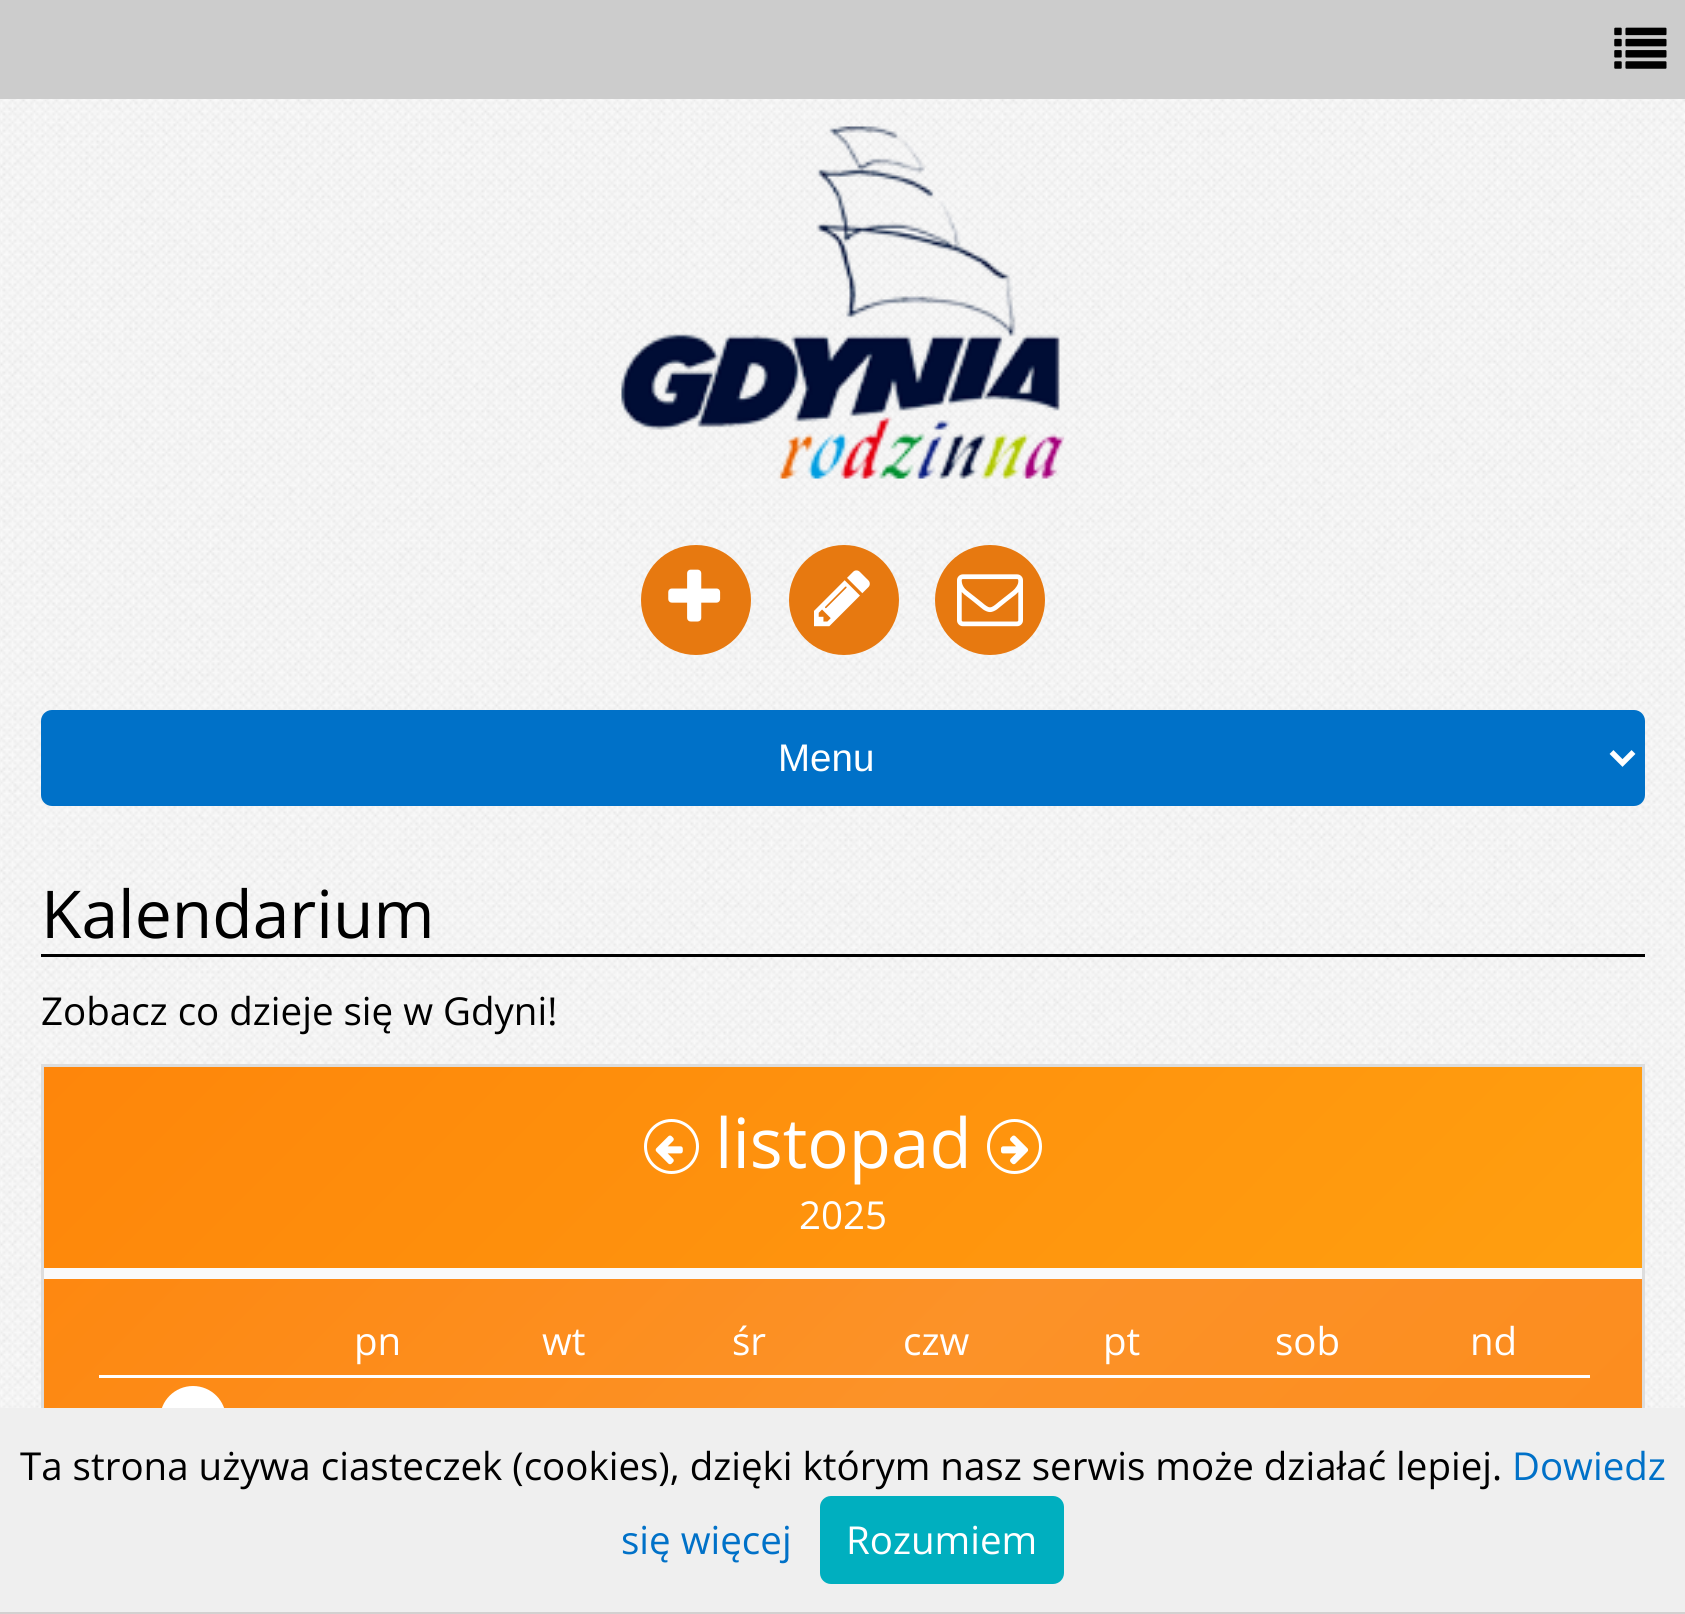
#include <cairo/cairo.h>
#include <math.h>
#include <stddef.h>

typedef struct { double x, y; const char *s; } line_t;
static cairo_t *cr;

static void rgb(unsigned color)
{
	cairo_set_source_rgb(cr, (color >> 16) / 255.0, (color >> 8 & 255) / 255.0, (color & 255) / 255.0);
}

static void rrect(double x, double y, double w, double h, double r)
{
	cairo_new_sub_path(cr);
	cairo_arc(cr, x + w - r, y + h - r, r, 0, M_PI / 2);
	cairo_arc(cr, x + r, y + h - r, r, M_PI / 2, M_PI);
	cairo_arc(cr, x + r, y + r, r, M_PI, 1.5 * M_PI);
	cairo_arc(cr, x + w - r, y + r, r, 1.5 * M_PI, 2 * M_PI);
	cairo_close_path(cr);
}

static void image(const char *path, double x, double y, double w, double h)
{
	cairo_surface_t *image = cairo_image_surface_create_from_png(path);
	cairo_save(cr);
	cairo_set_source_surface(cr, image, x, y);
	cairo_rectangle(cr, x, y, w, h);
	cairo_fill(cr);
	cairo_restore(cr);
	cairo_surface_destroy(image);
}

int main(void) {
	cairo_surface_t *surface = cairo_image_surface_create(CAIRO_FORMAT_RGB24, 1685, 1614);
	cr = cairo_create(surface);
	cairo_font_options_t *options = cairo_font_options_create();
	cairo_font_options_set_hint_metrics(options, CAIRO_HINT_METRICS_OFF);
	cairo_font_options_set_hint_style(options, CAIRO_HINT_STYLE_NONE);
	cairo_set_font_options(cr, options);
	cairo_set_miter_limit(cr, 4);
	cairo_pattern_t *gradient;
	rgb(0xffffff);
	cairo_paint(cr);
	image("img/1.png", 0, 99, 1685, 1309);
	rgb(0xcccccc);
	cairo_rectangle(cr, 0, 0, 1685, 99);
	cairo_fill(cr);
	image("img/2.png", 1614, 27, 53, 42);
	image("img/3.png", 621, 126, 444, 353);
	rgb(0xe77910);
	cairo_arc(cr, 696, 600, 55, 0, 2 * M_PI);
	cairo_fill(cr);
	image("img/4.png", 668, 569, 53, 53);
	cairo_arc(cr, 844, 600, 55, 0, 2 * M_PI);
	cairo_fill(cr);
	image("img/5.png", 814, 570, 56, 57);
	cairo_arc(cr, 990, 600, 55, 0, 2 * M_PI);
	cairo_fill(cr);
	image("img/6.png", 957, 574, 66, 53);
	rgb(0x0071c8);
	rrect(41, 710, 1604, 96, 11);
	cairo_fill(cr);
	cairo_new_path(cr);
	cairo_move_to(cr, 1611.5, 752);
	cairo_line_to(cr, 1622.5, 763);
	cairo_line_to(cr, 1633.5, 752);
	rgb(0xffffff);
	cairo_set_line_width(cr, 5.5);
	cairo_stroke(cr);
	rgb(0x000000);
	cairo_rectangle(cr, 41, 954, 1604, 3);
	cairo_fill(cr);
	gradient = cairo_pattern_create_linear(249, 862, 1437, 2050);
	cairo_pattern_add_color_stop_rgba(gradient, 0, 0.996, 0.525, 0.043, 1);
	cairo_pattern_add_color_stop_rgba(gradient, 0.5, 0.988, 0.573, 0.157, 1);
	cairo_pattern_add_color_stop_rgba(gradient, 1, 0.988, 0.541, 0.098, 1);
	cairo_set_source(cr, gradient);
	cairo_pattern_destroy(gradient);
	cairo_rectangle(cr, 44, 1279, 1598, 129);
	cairo_fill(cr);
	cairo_rectangle(cr, 42.5, 1065.5, 1601, 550);
	rgb(0xdddddd);
	cairo_set_line_width(cr, 3);
	cairo_stroke(cr);
	gradient = cairo_pattern_create_linear(393, 718, 1293, 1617);
	cairo_pattern_add_color_stop_rgba(gradient, 0, 0.996, 0.525, 0.043, 1);
	cairo_pattern_add_color_stop_rgba(gradient, 1, 1, 0.624, 0.059, 1);
	cairo_set_source(cr, gradient);
	cairo_pattern_destroy(gradient);
	cairo_rectangle(cr, 44, 1067, 1598, 201);
	cairo_fill(cr);
	rgb(0xfafafa);
	cairo_rectangle(cr, 44, 1268, 1598, 11);
	cairo_fill(cr);
	cairo_arc(cr, 671.5, 1146.5, 26, 0, 2 * M_PI);
	rgb(0xffffff);
	cairo_stroke(cr);
	image("img/7.png", 655, 1135, 28, 30);
	cairo_arc(cr, 1014.5, 1146.5, 26, 0, 2 * M_PI);
	cairo_stroke(cr);
	image("img/8.png", 1001, 1135, 28, 30);
	cairo_rectangle(cr, 99, 1375, 1491, 3);
	cairo_fill(cr);
	cairo_arc(cr, 193, 1419, 33, 0, 2 * M_PI);
	cairo_fill(cr);
	rgb(0xefefef);
	cairo_rectangle(cr, 0, 1408, 1685, 204);
	cairo_fill(cr);
	rgb(0xd3d0d0);
	cairo_rectangle(cr, 0, 1612, 1685, 2);
	cairo_fill(cr);
	rgb(0x00afbf);
	rrect(820, 1496, 244, 88, 11);
	cairo_fill(cr);
	cairo_select_font_face(cr, "Liberation Sans", CAIRO_FONT_SLANT_NORMAL, CAIRO_FONT_WEIGHT_NORMAL);
	cairo_set_font_size(cr, 38.5);
	rgb(0xffffff);
	cairo_move_to(cr, 778, 771);
	cairo_show_text(cr, "Menu");
	cairo_select_font_face(cr, "Open Sans", CAIRO_FONT_SLANT_NORMAL, CAIRO_FONT_WEIGHT_NORMAL);
	cairo_set_font_size(cr, 66);
	rgb(0x000000);
	cairo_move_to(cr, 41, 938);
	cairo_show_text(cr, "Kalendarium");
	cairo_set_font_size(cr, 38.5);
	cairo_move_to(cr, 41, 1025);
	cairo_show_text(cr, "Zobacz co dzieje się w Gdyni!");
	cairo_set_font_size(cr, 69);
	rgb(0xffffff);
	cairo_move_to(cr, 715, 1168);
	cairo_show_text(cr, "listopad");
	cairo_set_font_size(cr, 38.5);
	{
		static const line_t items[] = {
			{799, 1229, "2025"},
			{354, 1355, "pn"},
			{542, 1355, "wt"},
			{732, 1355, "śr"},
			{903, 1355, "czw"},
			{1103, 1355, "pt"},
			{1275, 1355, "sob"},
			{1470, 1355, "nd"},
		};
		for (size_t i = 0; i < sizeof items / sizeof *items; i++) {
			cairo_move_to(cr, items[i].x, items[i].y);
			cairo_show_text(cr, items[i].s);
		}
	}
	rgb(0x000000);
	cairo_move_to(cr, 20, 1480);
	cairo_show_text(cr, "Ta strona używa ciasteczek (cookies), dzięki którym nasz serwis może działać lepiej.");
	rgb(0x0071c8);
	cairo_move_to(cr, 1512, 1480);
	cairo_show_text(cr, "Dowiedz");
	cairo_move_to(cr, 621, 1554);
	cairo_show_text(cr, "się więcej");
	rgb(0xffffff);
	cairo_move_to(cr, 846, 1554);
	cairo_show_text(cr, "Rozumiem");
	cairo_surface_write_to_png(surface, "page.png");
	cairo_font_options_destroy(options);
	cairo_destroy(cr);
	cairo_surface_destroy(surface);
	return 0;
}
